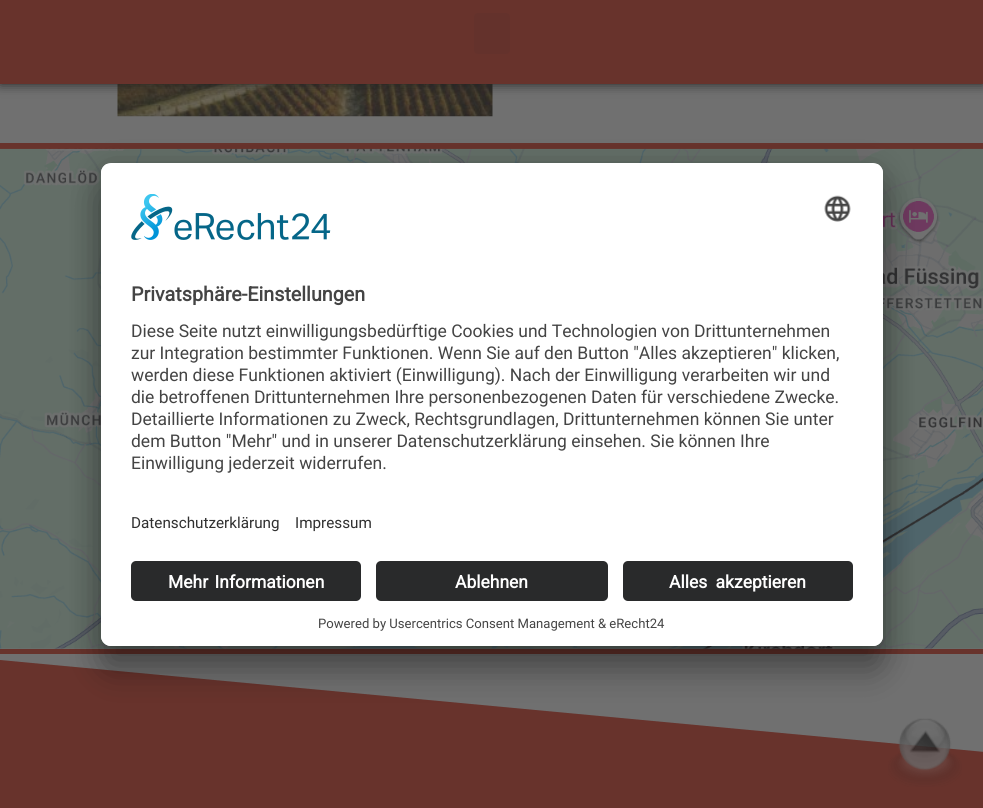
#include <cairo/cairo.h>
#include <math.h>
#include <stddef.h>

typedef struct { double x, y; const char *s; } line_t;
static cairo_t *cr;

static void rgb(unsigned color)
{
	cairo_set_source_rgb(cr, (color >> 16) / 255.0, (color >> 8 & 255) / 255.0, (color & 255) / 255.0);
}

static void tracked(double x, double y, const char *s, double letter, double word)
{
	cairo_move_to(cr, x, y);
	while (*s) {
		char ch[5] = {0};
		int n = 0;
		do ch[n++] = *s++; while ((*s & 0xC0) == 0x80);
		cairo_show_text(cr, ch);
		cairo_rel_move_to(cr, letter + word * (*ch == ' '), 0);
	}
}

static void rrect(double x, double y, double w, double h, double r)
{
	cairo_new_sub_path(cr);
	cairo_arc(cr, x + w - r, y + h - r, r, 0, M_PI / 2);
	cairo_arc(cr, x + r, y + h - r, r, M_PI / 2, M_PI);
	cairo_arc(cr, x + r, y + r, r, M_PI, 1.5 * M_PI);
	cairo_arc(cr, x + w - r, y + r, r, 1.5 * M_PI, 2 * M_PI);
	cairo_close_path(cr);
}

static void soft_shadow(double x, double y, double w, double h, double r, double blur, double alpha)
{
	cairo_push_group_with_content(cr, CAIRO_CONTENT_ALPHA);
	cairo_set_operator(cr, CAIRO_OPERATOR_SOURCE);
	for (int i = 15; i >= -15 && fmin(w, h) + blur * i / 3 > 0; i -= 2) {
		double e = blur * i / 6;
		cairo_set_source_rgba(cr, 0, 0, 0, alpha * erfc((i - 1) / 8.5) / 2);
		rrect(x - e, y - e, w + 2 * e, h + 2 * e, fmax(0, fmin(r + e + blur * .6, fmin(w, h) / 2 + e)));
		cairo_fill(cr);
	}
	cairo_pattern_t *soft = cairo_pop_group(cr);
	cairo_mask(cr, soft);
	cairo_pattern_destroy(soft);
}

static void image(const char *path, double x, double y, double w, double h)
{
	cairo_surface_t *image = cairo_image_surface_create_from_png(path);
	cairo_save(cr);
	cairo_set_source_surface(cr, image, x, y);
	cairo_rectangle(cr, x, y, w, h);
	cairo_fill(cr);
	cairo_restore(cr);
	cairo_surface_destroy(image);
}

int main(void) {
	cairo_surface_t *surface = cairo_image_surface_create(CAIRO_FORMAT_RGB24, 983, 808);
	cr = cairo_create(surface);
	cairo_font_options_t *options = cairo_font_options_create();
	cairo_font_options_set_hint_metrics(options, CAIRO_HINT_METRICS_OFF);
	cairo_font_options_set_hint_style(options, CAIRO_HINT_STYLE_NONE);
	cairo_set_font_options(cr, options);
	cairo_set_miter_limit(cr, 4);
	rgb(0x707070);
	cairo_paint(cr);
	image("img/1.png", 117, 84, 376, 33);
	rgb(0x242424);
	soft_shadow(0, 0, 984, 84, 0, 6, 1);
	rgb(0x68332c);
	cairo_rectangle(cr, 0, 0, 983, 84);
	cairo_fill(cr);
	rgb(0x64322c);
	rrect(474, 13, 36, 41, 4);
	cairo_fill(cr);
	rgb(0x68332c);
	cairo_rectangle(cr, 0, 143, 983, 6);
	cairo_fill(cr);
	cairo_rectangle(cr, 0, 649, 983, 5);
	cairo_fill(cr);
	image("img/2.png", 0, 148, 983, 501);
	cairo_rectangle(cr, 0, 660, 983, 148);
	cairo_fill(cr);
	rgb(0x707070);
	cairo_new_path(cr);
	cairo_move_to(cr, 0, 660);
	cairo_line_to(cr, 0, 654);
	cairo_line_to(cr, 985, 654);
	cairo_line_to(cr, 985, 752);
	cairo_close_path(cr);
	cairo_fill(cr);
	image("img/5.png", 888, 718, 74, 69);
	rgb(0x000000);
	soft_shadow(101, 188, 782, 483, 10, 17.5, 0.3);
	soft_shadow(101, 169, 782, 484, 10, 16, 0.22);
	rgb(0xffffff);
	rrect(101, 163, 782, 483, 10);
	cairo_fill(cr);
	cairo_save(cr);
	rrect(101, 163, 782, 483, 10);
	cairo_clip(cr);
	cairo_new_path(cr);
	cairo_move_to(cr, 111, 163);
	cairo_line_to(cr, 873, 163);
	cairo_curve_to(cr, 878.5, 163, 883, 167.5, 883, 173);
	cairo_line_to(cr, 883, 551);
	cairo_line_to(cr, 101, 551);
	cairo_line_to(cr, 101, 173);
	cairo_curve_to(cr, 101, 167.5, 105.5, 163, 111, 163);
	cairo_close_path(cr);
	cairo_clip(cr);
	cairo_rectangle(cr, 101, 164, 782, 387);
	cairo_fill(cr);
	cairo_restore(cr);
	image("img/3.png", 131, 194, 200, 46);
	image("img/4.png", 824, 195, 27, 27);
	cairo_new_path(cr);
	cairo_move_to(cr, 101, 551);
	cairo_line_to(cr, 883, 551);
	cairo_line_to(cr, 883, 636);
	cairo_curve_to(cr, 883, 641.5, 878.5, 646, 873, 646);
	cairo_line_to(cr, 111, 646);
	cairo_curve_to(cr, 105.5, 646, 101, 641.5, 101, 636);
	cairo_close_path(cr);
	cairo_fill(cr);
	rgb(0x292a2b);
	rrect(131, 561, 230, 40, 5);
	cairo_fill(cr);
	rrect(376, 561, 232, 40, 5);
	cairo_fill(cr);
	rrect(623, 561, 230, 40, 5);
	cairo_fill(cr);
	cairo_select_font_face(cr, "Roboto", CAIRO_FONT_SLANT_NORMAL, CAIRO_FONT_WEIGHT_BOLD);
	cairo_set_font_size(cr, 19.75);
	rgb(0x444444);
	cairo_move_to(cr, 131, 301);
	cairo_show_text(cr, "Privatsphäre-Einstellungen");
	cairo_select_font_face(cr, "Roboto", CAIRO_FONT_SLANT_NORMAL, CAIRO_FONT_WEIGHT_NORMAL);
	cairo_set_font_size(cr, 17.5);
	{
		static const line_t items[] = {
			{131, 337, "Diese Seite nutzt einwilligungsbedürftige Cookies und Technologien von Drittunternehmen"},
			{131, 359, "zur Integration bestimmter Funktionen. Wenn Sie auf den Button \"Alles akzeptieren\" klicken,"},
			{131, 381, "werden diese Funktionen aktiviert (Einwilligung). Nach der Einwilligung verarbeiten wir und"},
			{131, 403, "die betroffenen Drittunternehmen Ihre personenbezogenen Daten für verschiedene Zwecke."},
			{131, 425, "Detaillierte Informationen zu Zweck, Rechtsgrundlagen, Drittunternehmen können Sie unter"},
			{131, 447, "dem Button \"Mehr\" und in unserer Datenschutzerklärung einsehen. Sie können Ihre"},
			{131, 469, "Einwilligung jederzeit widerrufen."},
		};
		for (size_t i = 0; i < sizeof items / sizeof *items; i++) {
			cairo_move_to(cr, items[i].x, items[i].y);
			cairo_show_text(cr, items[i].s);
		}
	}
	cairo_set_font_size(cr, 15.25);
	rgb(0x303030);
	cairo_move_to(cr, 131, 528);
	cairo_show_text(cr, "Datenschutzerklärung");
	cairo_move_to(cr, 295, 528);
	cairo_show_text(cr, "Impressum");
	cairo_select_font_face(cr, "Roboto", CAIRO_FONT_SLANT_NORMAL, CAIRO_FONT_WEIGHT_BOLD);
	cairo_set_font_size(cr, 17.5);
	rgb(0xffffff);
	tracked(168, 588, "Mehr Informationen", 0, 2);
	cairo_move_to(cr, 455, 588);
	cairo_show_text(cr, "Ablehnen");
	tracked(669, 588, "Alles akzeptieren", 0, 4);
	cairo_select_font_face(cr, "Roboto", CAIRO_FONT_SLANT_NORMAL, CAIRO_FONT_WEIGHT_NORMAL);
	cairo_set_font_size(cr, 13.1);
	rgb(0x444444);
	cairo_move_to(cr, 318, 628);
	cairo_show_text(cr, "Powered by Usercentrics Consent Management & eRecht24");
	cairo_surface_write_to_png(surface, "page.png");
	cairo_font_options_destroy(options);
	cairo_destroy(cr);
	cairo_surface_destroy(surface);
	return 0;
}
